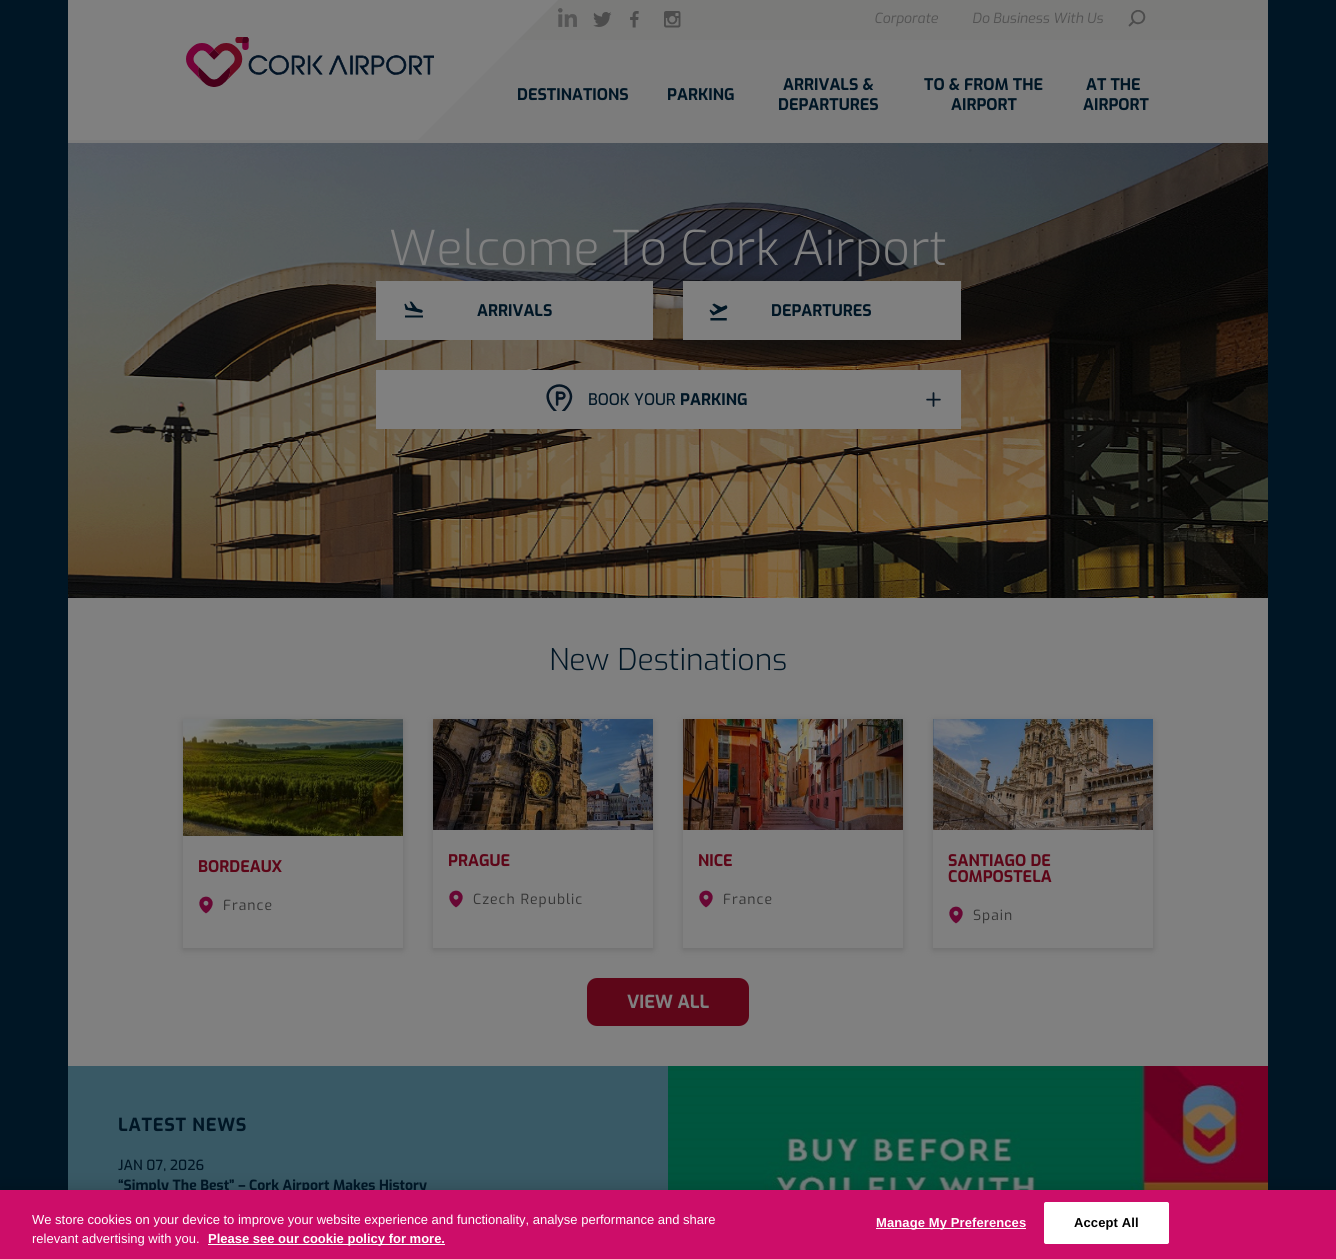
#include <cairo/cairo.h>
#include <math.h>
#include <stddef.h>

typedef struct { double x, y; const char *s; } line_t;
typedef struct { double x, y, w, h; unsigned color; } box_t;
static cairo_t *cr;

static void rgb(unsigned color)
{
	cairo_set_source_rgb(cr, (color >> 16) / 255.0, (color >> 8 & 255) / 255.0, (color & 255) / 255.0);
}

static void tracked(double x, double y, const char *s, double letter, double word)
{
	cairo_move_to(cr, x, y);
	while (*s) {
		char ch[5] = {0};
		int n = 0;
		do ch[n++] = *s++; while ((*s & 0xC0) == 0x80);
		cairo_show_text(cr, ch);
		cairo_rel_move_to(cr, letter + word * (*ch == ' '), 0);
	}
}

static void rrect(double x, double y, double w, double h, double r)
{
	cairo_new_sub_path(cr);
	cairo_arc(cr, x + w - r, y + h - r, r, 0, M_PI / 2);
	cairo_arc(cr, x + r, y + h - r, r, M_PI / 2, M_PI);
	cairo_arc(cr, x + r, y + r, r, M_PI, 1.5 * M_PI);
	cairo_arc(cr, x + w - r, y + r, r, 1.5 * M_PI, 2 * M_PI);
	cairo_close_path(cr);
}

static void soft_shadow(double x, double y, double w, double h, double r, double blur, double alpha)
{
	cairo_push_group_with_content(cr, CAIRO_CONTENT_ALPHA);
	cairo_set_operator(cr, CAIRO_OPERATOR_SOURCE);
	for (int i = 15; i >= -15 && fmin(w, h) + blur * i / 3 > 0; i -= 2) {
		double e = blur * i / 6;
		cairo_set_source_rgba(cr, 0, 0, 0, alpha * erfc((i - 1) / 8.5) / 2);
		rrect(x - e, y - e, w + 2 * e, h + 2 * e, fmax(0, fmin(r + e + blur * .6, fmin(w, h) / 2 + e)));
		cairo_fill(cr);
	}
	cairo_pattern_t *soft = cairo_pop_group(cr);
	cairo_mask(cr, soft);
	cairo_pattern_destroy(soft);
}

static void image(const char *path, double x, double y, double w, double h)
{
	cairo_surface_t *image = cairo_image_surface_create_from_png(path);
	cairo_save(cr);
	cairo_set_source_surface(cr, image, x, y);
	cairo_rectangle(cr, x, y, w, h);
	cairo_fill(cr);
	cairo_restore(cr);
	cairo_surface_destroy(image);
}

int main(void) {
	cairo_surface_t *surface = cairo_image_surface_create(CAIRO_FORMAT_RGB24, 1336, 1259);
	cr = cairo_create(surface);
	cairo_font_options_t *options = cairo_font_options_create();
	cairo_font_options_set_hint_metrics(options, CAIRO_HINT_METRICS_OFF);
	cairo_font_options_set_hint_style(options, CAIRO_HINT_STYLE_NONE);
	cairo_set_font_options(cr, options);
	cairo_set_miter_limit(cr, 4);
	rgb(0x001625);
	cairo_paint(cr);
	{
		static const box_t items[] = {
			{68, 598, 1200, 468, 0x808080},
			{68, 40, 1200, 103, 0x7c7c7c},
			{68, 0, 350, 140, 0x808080},
			{518, 0, 750, 40, 0x7a7a79},
		};
		for (size_t i = 0; i < sizeof items / sizeof *items; i++) {
			rgb(items[i].color);
			cairo_rectangle(cr, items[i].x, items[i].y, items[i].w, items[i].h);
			cairo_fill(cr);
		}
	}
	image("img/2.png", 558, 8, 19, 19);
	image("img/3.png", 593, 12, 19, 15);
	image("img/4.png", 630, 11, 9, 17);
	image("img/5.png", 664, 11, 17, 17);
	image("img/6.png", 1128, 10, 18, 17);
	image("img/7.png", 68, 143, 1200, 455);
	rgb(0x808080);
	cairo_rectangle(cr, 376, 281, 277, 59);
	cairo_fill(cr);
	image("img/8.png", 404, 301, 19, 17);
	cairo_rectangle(cr, 683, 281, 278, 59);
	cairo_fill(cr);
	image("img/9.png", 709, 303, 19, 18);
	cairo_rectangle(cr, 376, 370, 585, 59);
	cairo_fill(cr);
	image("img/10.png", 546, 384, 27, 27);
	image("img/11.png", 926, 392, 15, 15);
	cairo_save(cr);
	cairo_set_fill_rule(cr, CAIRO_FILL_RULE_EVEN_ODD);
	cairo_new_path(cr);
	cairo_move_to(cr, 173, 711);
	cairo_line_to(cr, 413, 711);
	cairo_line_to(cr, 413, 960);
	cairo_line_to(cr, 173, 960);
	cairo_close_path(cr);
	cairo_move_to(cr, 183, 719);
	cairo_line_to(cr, 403, 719);
	cairo_line_to(cr, 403, 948);
	cairo_line_to(cr, 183, 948);
	cairo_close_path(cr);
	cairo_clip(cr);
	rgb(0x686868);
	soft_shadow(183, 721, 220, 229, 0, 3, 0.75);
	cairo_restore(cr);
	image("img/12.png", 183, 719, 220, 117);
	image("img/13.png", 199, 896, 14, 18);
	cairo_save(cr);
	cairo_set_fill_rule(cr, CAIRO_FILL_RULE_EVEN_ODD);
	cairo_new_path(cr);
	cairo_move_to(cr, 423, 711);
	cairo_line_to(cr, 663, 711);
	cairo_line_to(cr, 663, 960);
	cairo_line_to(cr, 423, 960);
	cairo_close_path(cr);
	cairo_move_to(cr, 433, 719);
	cairo_line_to(cr, 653, 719);
	cairo_line_to(cr, 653, 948);
	cairo_line_to(cr, 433, 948);
	cairo_close_path(cr);
	cairo_clip(cr);
	rgb(0x686868);
	soft_shadow(433, 721, 220, 229, 0, 3, 0.75);
	cairo_restore(cr);
	image("img/14.png", 433, 719, 220, 111);
	image("img/13.png", 449, 890, 14, 18);
	cairo_save(cr);
	cairo_set_fill_rule(cr, CAIRO_FILL_RULE_EVEN_ODD);
	cairo_new_path(cr);
	cairo_move_to(cr, 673, 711);
	cairo_line_to(cr, 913, 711);
	cairo_line_to(cr, 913, 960);
	cairo_line_to(cr, 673, 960);
	cairo_close_path(cr);
	cairo_move_to(cr, 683, 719);
	cairo_line_to(cr, 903, 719);
	cairo_line_to(cr, 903, 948);
	cairo_line_to(cr, 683, 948);
	cairo_close_path(cr);
	cairo_clip(cr);
	rgb(0x686868);
	soft_shadow(683, 721, 220, 229, 0, 3, 0.75);
	cairo_restore(cr);
	image("img/15.png", 683, 719, 220, 111);
	image("img/13.png", 699, 890, 14, 18);
	cairo_save(cr);
	cairo_set_fill_rule(cr, CAIRO_FILL_RULE_EVEN_ODD);
	cairo_new_path(cr);
	cairo_move_to(cr, 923, 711);
	cairo_line_to(cr, 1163, 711);
	cairo_line_to(cr, 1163, 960);
	cairo_line_to(cr, 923, 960);
	cairo_close_path(cr);
	cairo_move_to(cr, 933, 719);
	cairo_line_to(cr, 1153, 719);
	cairo_line_to(cr, 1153, 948);
	cairo_line_to(cr, 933, 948);
	cairo_close_path(cr);
	cairo_clip(cr);
	rgb(0x686868);
	soft_shadow(933, 721, 220, 229, 0, 3, 0.75);
	cairo_restore(cr);
	image("img/16.png", 933, 719, 220, 111);
	image("img/13.png", 949, 906, 14, 18);
	rgb(0x5d0618);
	rrect(587, 978, 162, 48, 10);
	cairo_fill(cr);
	rgb(0x395965);
	cairo_rectangle(cr, 68, 1066, 600, 124);
	cairo_fill(cr);
	image("img/17.png", 668, 1066, 600, 124);
	rgb(0x000000);
	soft_shadow(0, 1190, 1336, 69, 0, 9, 0.2);
	cairo_select_font_face(cr, "Exo", CAIRO_FONT_SLANT_ITALIC, CAIRO_FONT_WEIGHT_NORMAL);
	cairo_set_font_size(cr, 14);
	rgb(0x535353);
	cairo_move_to(cr, 874, 23);
	cairo_show_text(cr, "Corporate");
	cairo_move_to(cr, 972, 23);
	cairo_show_text(cr, "Do Business With Us");
	cairo_select_font_face(cr, "Exo", CAIRO_FONT_SLANT_NORMAL, CAIRO_FONT_WEIGHT_BOLD);
	cairo_set_font_size(cr, 16);
	rgb(0x001625);
	cairo_move_to(cr, 517, 100);
	cairo_show_text(cr, "DESTINATIONS");
	rgb(0x808080);
	cairo_new_path(cr);
	cairo_move_to(cr, 418, 140);
	cairo_line_to(cr, 418, 0);
	cairo_line_to(cr, 558, 0);
	cairo_close_path(cr);
	cairo_fill(cr);
	image("img/1.png", 186, 37, 248, 50);
	rgb(0x001625);
	{
		static const line_t items[] = {
			{667, 100, "PARKING"},
			{783, 90, "ARRIVALS &"},
			{778, 110, "DEPARTURES"},
			{924, 90, "TO & FROM THE"},
			{951, 110, "AIRPORT"},
			{1086, 90, "AT THE"},
			{1083, 110, "AIRPORT"},
		};
		for (size_t i = 0; i < sizeof items / sizeof *items; i++) {
			cairo_move_to(cr, items[i].x, items[i].y);
			cairo_show_text(cr, items[i].s);
		}
	}
	cairo_select_font_face(cr, "Exo Light", CAIRO_FONT_SLANT_NORMAL, CAIRO_FONT_WEIGHT_NORMAL);
	cairo_set_font_size(cr, 48);
	rgb(0x808080);
	cairo_move_to(cr, 389, 265);
	cairo_show_text(cr, "Welcome To Cork Airport");
	cairo_select_font_face(cr, "Exo", CAIRO_FONT_SLANT_NORMAL, CAIRO_FONT_WEIGHT_BOLD);
	cairo_set_font_size(cr, 16);
	rgb(0x001625);
	cairo_move_to(cr, 477, 316);
	cairo_show_text(cr, "ARRIVALS");
	cairo_move_to(cr, 771, 316);
	cairo_show_text(cr, "DEPARTURES");
	cairo_select_font_face(cr, "Exo Medium", CAIRO_FONT_SLANT_NORMAL, CAIRO_FONT_WEIGHT_NORMAL);
	cairo_move_to(cr, 588, 405);
	cairo_show_text(cr, "BOOK YOUR");
	cairo_select_font_face(cr, "Exo", CAIRO_FONT_SLANT_NORMAL, CAIRO_FONT_WEIGHT_BOLD);
	cairo_move_to(cr, 680, 405);
	cairo_show_text(cr, "PARKING");
	cairo_select_font_face(cr, "Exo Light", CAIRO_FONT_SLANT_NORMAL, CAIRO_FONT_WEIGHT_NORMAL);
	cairo_set_font_size(cr, 30);
	cairo_move_to(cr, 549, 670);
	cairo_show_text(cr, "New Destinations");
	cairo_select_font_face(cr, "Exo", CAIRO_FONT_SLANT_NORMAL, CAIRO_FONT_WEIGHT_BOLD);
	cairo_set_font_size(cr, 16);
	rgb(0x5d0618);
	cairo_move_to(cr, 198, 872);
	cairo_show_text(cr, "BORDEAUX");
	cairo_select_font_face(cr, "Exo", CAIRO_FONT_SLANT_NORMAL, CAIRO_FONT_WEIGHT_NORMAL);
	cairo_set_font_size(cr, 14);
	rgb(0x333333);
	tracked(223, 910, "France", 1, 0);
	cairo_select_font_face(cr, "Exo", CAIRO_FONT_SLANT_NORMAL, CAIRO_FONT_WEIGHT_BOLD);
	cairo_set_font_size(cr, 16);
	rgb(0x5d0618);
	cairo_move_to(cr, 448, 866);
	cairo_show_text(cr, "PRAGUE");
	cairo_select_font_face(cr, "Exo", CAIRO_FONT_SLANT_NORMAL, CAIRO_FONT_WEIGHT_NORMAL);
	cairo_set_font_size(cr, 14);
	rgb(0x333333);
	tracked(473, 904, "Czech Republic", 1, 0);
	cairo_select_font_face(cr, "Exo", CAIRO_FONT_SLANT_NORMAL, CAIRO_FONT_WEIGHT_BOLD);
	cairo_set_font_size(cr, 16);
	rgb(0x5d0618);
	cairo_move_to(cr, 698, 866);
	cairo_show_text(cr, "NICE");
	cairo_select_font_face(cr, "Exo", CAIRO_FONT_SLANT_NORMAL, CAIRO_FONT_WEIGHT_NORMAL);
	cairo_set_font_size(cr, 14);
	rgb(0x333333);
	tracked(723, 904, "France", 1, 0);
	cairo_select_font_face(cr, "Exo", CAIRO_FONT_SLANT_NORMAL, CAIRO_FONT_WEIGHT_BOLD);
	cairo_set_font_size(cr, 16);
	rgb(0x5d0618);
	cairo_move_to(cr, 948, 866);
	cairo_show_text(cr, "SANTIAGO DE");
	cairo_move_to(cr, 948, 882);
	cairo_show_text(cr, "COMPOSTELA");
	cairo_select_font_face(cr, "Exo", CAIRO_FONT_SLANT_NORMAL, CAIRO_FONT_WEIGHT_NORMAL);
	cairo_set_font_size(cr, 14);
	rgb(0x333333);
	tracked(973, 920, "Spain", 1, 0);
	cairo_select_font_face(cr, "Exo", CAIRO_FONT_SLANT_NORMAL, CAIRO_FONT_WEIGHT_BOLD);
	cairo_set_font_size(cr, 18);
	rgb(0x808080);
	cairo_move_to(cr, 627, 1008);
	cairo_show_text(cr, "VIEW ALL");
	rgb(0x001625);
	tracked(118, 1131, "LATEST NEWS", 0.75, 0);
	cairo_select_font_face(cr, "Exo Medium", CAIRO_FONT_SLANT_NORMAL, CAIRO_FONT_WEIGHT_NORMAL);
	cairo_set_font_size(cr, 14);
	cairo_move_to(cr, 118, 1170);
	cairo_show_text(cr, "JAN 07, 2026");
	cairo_select_font_face(cr, "Exo", CAIRO_FONT_SLANT_NORMAL, CAIRO_FONT_WEIGHT_BOLD);
	cairo_move_to(cr, 118, 1190);
	cairo_show_text(cr, "“Simply The Best” – Cork Airport Makes History");
	rgb(0xcd0d69);
	cairo_rectangle(cr, 0, 1190, 1336, 69);
	cairo_fill(cr);
	cairo_select_font_face(cr, "Liberation Sans", CAIRO_FONT_SLANT_NORMAL, CAIRO_FONT_WEIGHT_NORMAL);
	cairo_set_font_size(cr, 13);
	rgb(0xffffff);
	cairo_move_to(cr, 32, 1224);
	cairo_show_text(cr, "We store cookies on your device to improve your website experience and functionality, analyse performance and share");
	cairo_move_to(cr, 32, 1243);
	cairo_show_text(cr, "relevant advertising with you.");
	cairo_rectangle(cr, 208, 1244, 237, 1);
	cairo_fill(cr);
	cairo_select_font_face(cr, "Liberation Sans", CAIRO_FONT_SLANT_NORMAL, CAIRO_FONT_WEIGHT_BOLD);
	cairo_move_to(cr, 208, 1243);
	cairo_show_text(cr, "Please see our cookie policy for more.");
	cairo_rectangle(cr, 876, 1228, 150, 1);
	cairo_fill(cr);
	tracked(876, 1227, "Manage My Preferences", 0.1, 0);
	rrect(1044.5, 1202.5, 124, 41, 1.5);
	cairo_fill_preserve(cr);
	cairo_set_line_width(cr, 1);
	cairo_stroke(cr);
	rgb(0x000000);
	tracked(1074, 1227, "Accept All", 0.1, 0);
	cairo_surface_write_to_png(surface, "page.png");
	cairo_font_options_destroy(options);
	cairo_destroy(cr);
	cairo_surface_destroy(surface);
	return 0;
}
